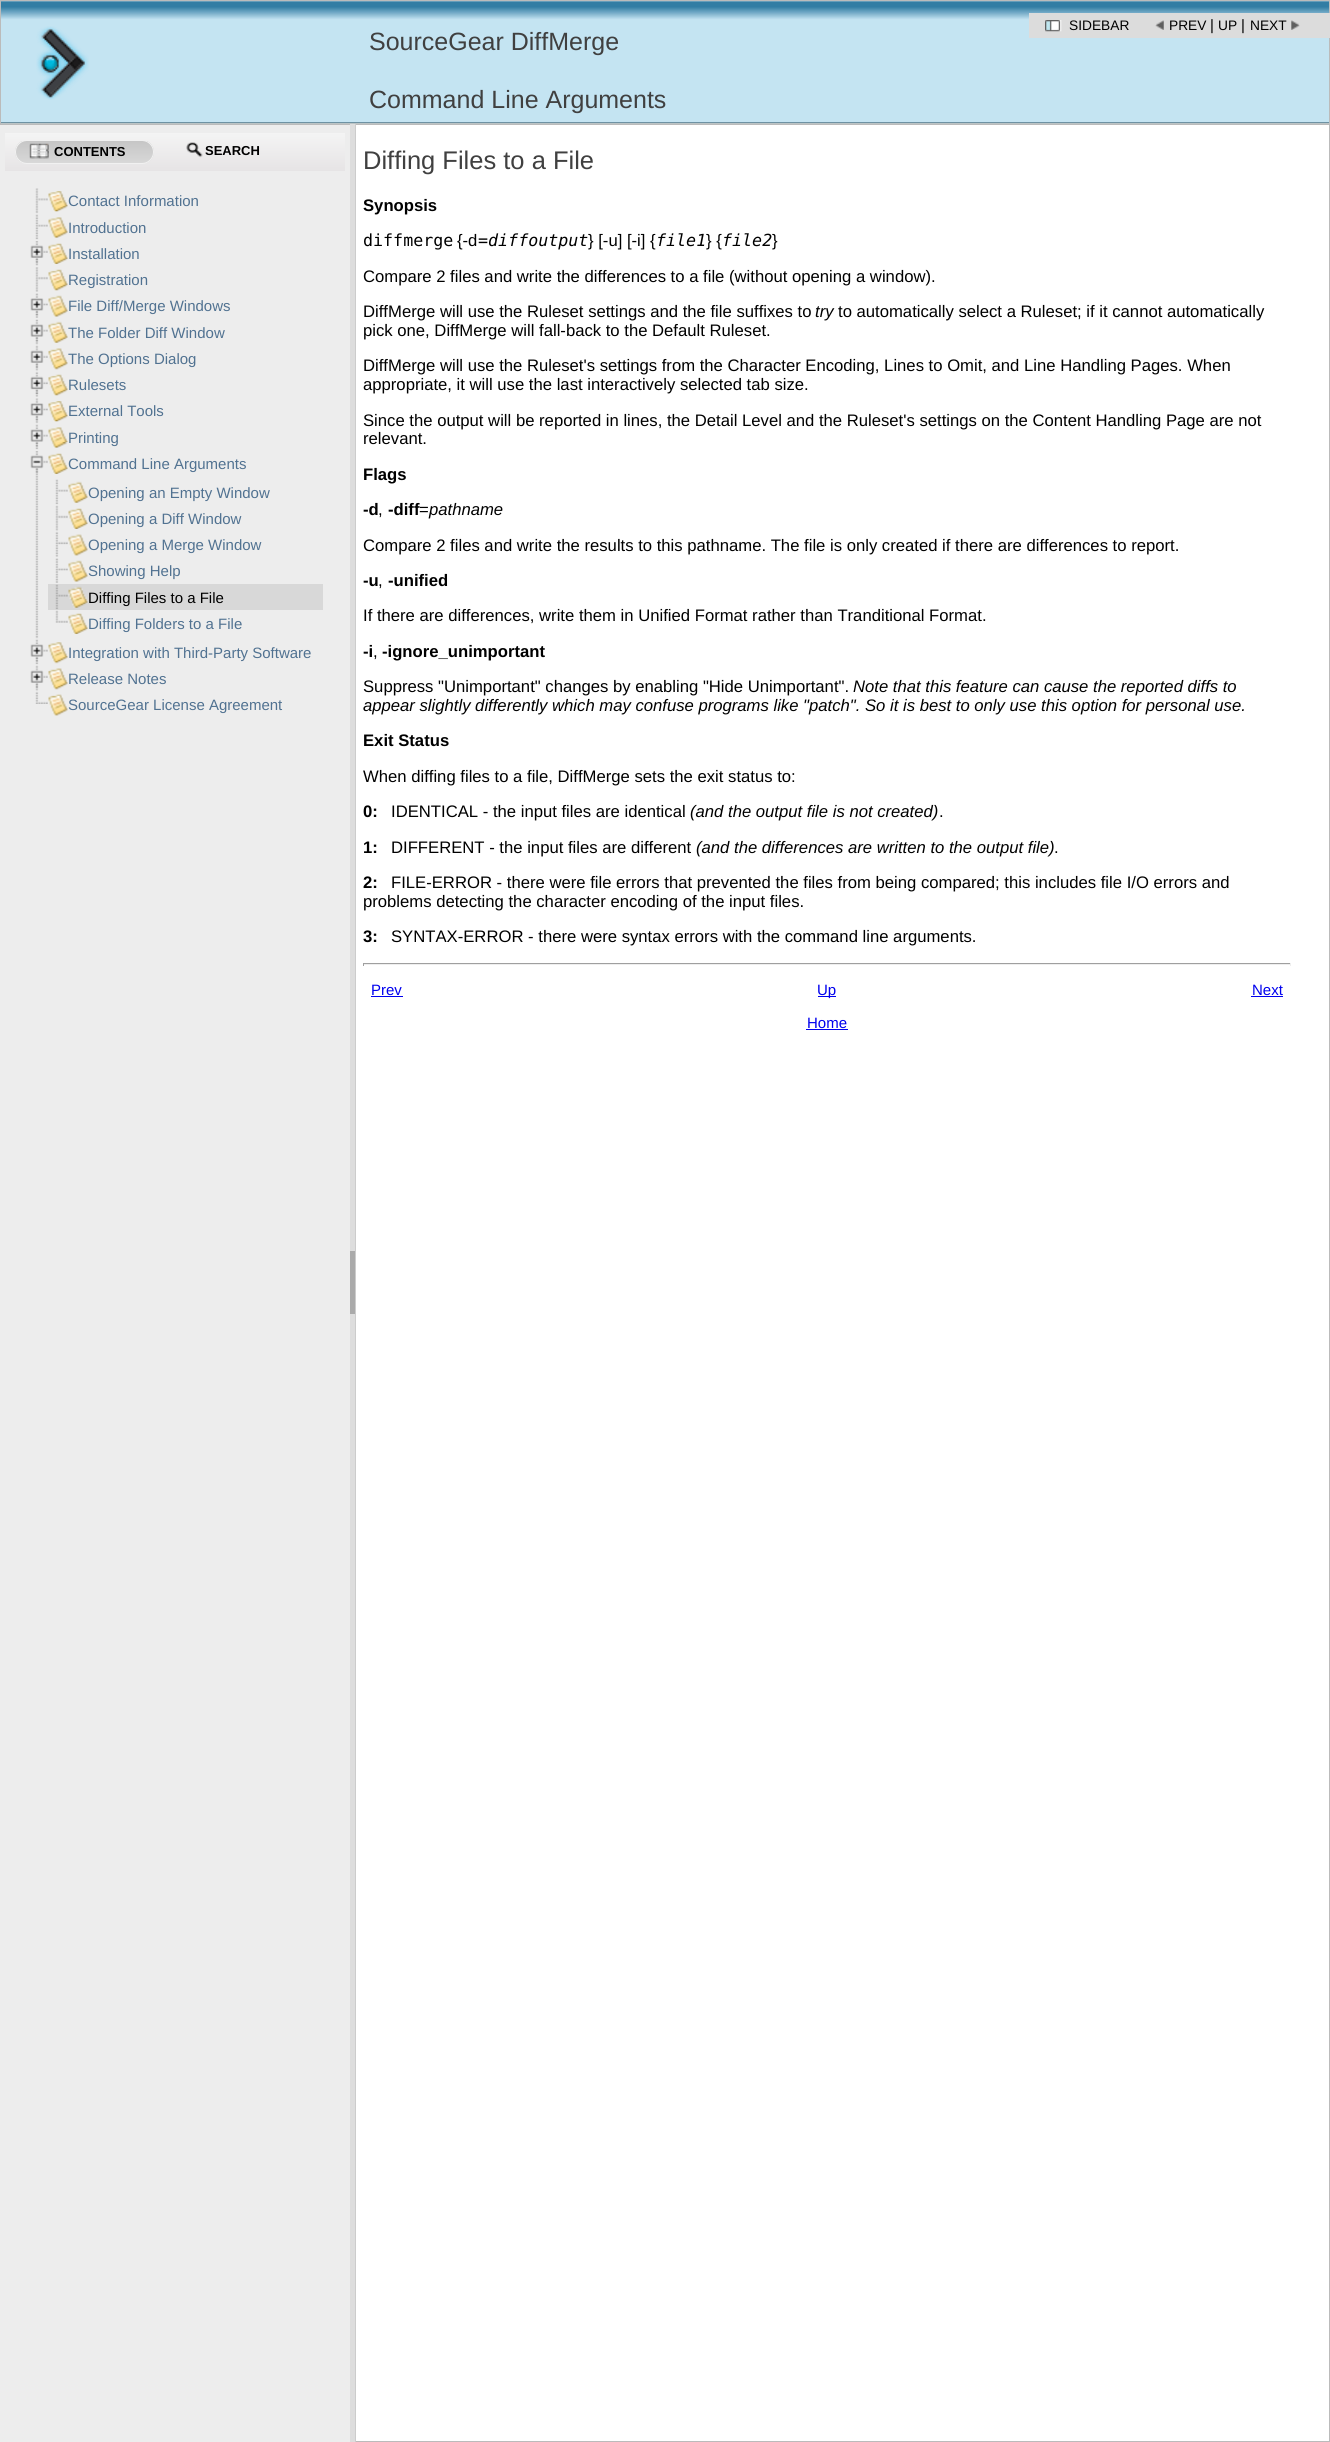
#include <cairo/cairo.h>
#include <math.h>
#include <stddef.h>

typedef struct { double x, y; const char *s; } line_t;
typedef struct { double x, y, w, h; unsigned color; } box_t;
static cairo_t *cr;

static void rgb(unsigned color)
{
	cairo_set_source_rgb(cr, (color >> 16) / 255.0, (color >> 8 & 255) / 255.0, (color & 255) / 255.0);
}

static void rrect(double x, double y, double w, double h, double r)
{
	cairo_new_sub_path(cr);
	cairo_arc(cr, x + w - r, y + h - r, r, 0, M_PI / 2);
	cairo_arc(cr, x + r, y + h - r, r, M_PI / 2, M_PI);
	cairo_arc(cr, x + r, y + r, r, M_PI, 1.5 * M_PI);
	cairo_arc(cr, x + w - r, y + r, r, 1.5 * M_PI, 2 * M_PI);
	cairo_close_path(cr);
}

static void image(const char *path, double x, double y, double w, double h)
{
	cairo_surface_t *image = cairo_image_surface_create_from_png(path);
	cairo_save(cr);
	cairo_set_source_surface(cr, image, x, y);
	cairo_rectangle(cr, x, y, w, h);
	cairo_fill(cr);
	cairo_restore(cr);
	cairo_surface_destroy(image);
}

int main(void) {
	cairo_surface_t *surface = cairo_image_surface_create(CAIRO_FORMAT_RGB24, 1330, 2442);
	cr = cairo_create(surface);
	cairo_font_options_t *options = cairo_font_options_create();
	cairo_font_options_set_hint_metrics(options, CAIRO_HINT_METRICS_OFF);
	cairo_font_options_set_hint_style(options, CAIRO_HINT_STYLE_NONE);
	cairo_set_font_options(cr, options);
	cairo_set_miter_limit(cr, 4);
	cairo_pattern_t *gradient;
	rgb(0xffffff);
	cairo_paint(cr);
	image("img/1.png", 1, 1, 1328, 122);
	{
		static const box_t items[] = {
			{0, 0, 1330, 1, 0xbbbbbb},
			{1329, 0, 1, 124, 0xbbbbbb},
			{0, 123, 1330, 1, 0xbbc4c5},
			{0, 0, 1, 124, 0xbbbbbb},
		};
		for (size_t i = 0; i < sizeof items / sizeof *items; i++) {
			rgb(items[i].color);
			cairo_rectangle(cr, items[i].x, items[i].y, items[i].w, items[i].h);
			cairo_fill(cr);
		}
	}
	image("img/2.png", 36, 26, 53, 74);
	rgb(0xdcdcdc);
	cairo_rectangle(cr, 1029, 13, 301, 25);
	cairo_fill(cr);
	image("img/3.png", 1045, 20, 17, 12);
	image("img/4.png", 1155, 20, 9, 10);
	image("img/5.png", 1291, 20, 9, 10);
	cairo_rectangle(cr, 0.5, 124.5, 349, 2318);
	rgb(0xbbbbbb);
	cairo_set_line_width(cr, 1);
	cairo_stroke(cr);
	rgb(0xededed);
	cairo_rectangle(cr, 0, 125, 350, 2317);
	cairo_fill(cr);
	gradient = cairo_pattern_create_linear(5, 133, 5, 171);
	cairo_pattern_add_color_stop_rgba(gradient, 0, 0.957, 0.957, 0.957, 1);
	cairo_pattern_add_color_stop_rgba(gradient, 1, 0.902, 0.894, 0.898, 1);
	cairo_set_source(cr, gradient);
	cairo_pattern_destroy(gradient);
	cairo_rectangle(cr, 5, 133, 340, 38);
	cairo_fill(cr);
	cairo_save(cr);
	rrect(15, 140, 139, 24, 12);
	cairo_clip(cr);
	gradient = cairo_pattern_create_linear(16, 141, 16, 163);
	cairo_pattern_add_color_stop_rgba(gradient, 0, 0.776, 0.776, 0.776, 1);
	cairo_pattern_add_color_stop_rgba(gradient, 1, 0.847, 0.847, 0.847, 1);
	cairo_set_source(cr, gradient);
	cairo_pattern_destroy(gradient);
	cairo_rectangle(cr, 15, 141, 139, 22);
	cairo_fill(cr);
	cairo_restore(cr);
	rrect(15.5, 140.5, 138, 23, 11.5);
	rgb(0xf1f1f1);
	cairo_stroke(cr);
	image("img/6.png", 29, 143, 20, 16);
	image("img/7.png", 186, 142, 17, 16);
	image("img/8.png", 35, 188, 13, 26);
	image("img/9.png", 48, 191, 20, 21);
	image("img/10.png", 35, 214, 13, 26);
	image("img/11.png", 48, 217, 20, 21);
	image("img/12.png", 35, 241, 4, 25);
	image("img/13.png", 30, 245, 18, 18);
	image("img/14.png", 48, 243, 20, 21);
	image("img/15.png", 35, 267, 13, 25);
	image("img/16.png", 48, 269, 20, 22);
	image("img/17.png", 35, 293, 4, 25);
	image("img/18.png", 30, 298, 18, 18);
	image("img/19.png", 48, 295, 20, 22);
	image("img/20.png", 35, 319, 4, 26);
	image("img/21.png", 30, 324, 18, 18);
	image("img/22.png", 48, 321, 20, 22);
	image("img/23.png", 35, 345, 4, 26);
	image("img/24.png", 30, 350, 18, 18);
	image("img/25.png", 48, 348, 20, 22);
	image("img/26.png", 35, 371, 4, 26);
	image("img/27.png", 30, 376, 18, 19);
	image("img/16.png", 48, 374, 20, 22);
	image("img/28.png", 35, 398, 4, 26);
	image("img/29.png", 30, 403, 18, 18);
	image("img/30.png", 48, 401, 20, 21);
	image("img/31.png", 35, 424, 4, 26);
	image("img/32.png", 30, 429, 18, 18);
	image("img/33.png", 48, 427, 20, 21);
	image("img/34.png", 35, 451, 4, 188);
	image("img/35.png", 30, 455, 18, 18);
	image("img/14.png", 48, 453, 20, 21);
	image("img/36.png", 55, 479, 13, 26);
	image("img/37.png", 68, 481, 20, 22);
	image("img/38.png", 55, 505, 13, 26);
	image("img/39.png", 68, 508, 20, 21);
	image("img/40.png", 55, 531, 13, 26);
	image("img/41.png", 68, 534, 20, 22);
	image("img/42.png", 55, 558, 13, 25);
	image("img/43.png", 68, 560, 20, 22);
	rgb(0xd8d8d8);
	cairo_rectangle(cr, 48, 584, 275, 26);
	cairo_fill(cr);
	image("img/44.png", 55, 584, 13, 26);
	image("img/45.png", 68, 586, 20, 22);
	image("img/46.png", 55, 610, 13, 13);
	image("img/39.png", 68, 613, 20, 21);
	image("img/31.png", 35, 639, 4, 26);
	image("img/32.png", 30, 644, 18, 18);
	image("img/47.png", 48, 642, 20, 22);
	image("img/23.png", 35, 665, 4, 26);
	image("img/24.png", 30, 670, 18, 18);
	image("img/25.png", 48, 668, 20, 22);
	image("img/48.png", 35, 691, 13, 13);
	image("img/49.png", 48, 694, 20, 22);
	{
		static const box_t items[] = {
			{350, 124, 5, 2318, 0xdddddd},
			{350, 1251, 5, 63, 0xaaaaaa},
			{355, 124, 975, 1, 0xbbbbbb},
			{1329, 124, 1, 2318, 0xbbbbbb},
			{355, 2441, 975, 1, 0xbbbbbb},
			{355, 124, 1, 2318, 0xcccccc},
			{363, 963, 928, 1, 0x9f9f9f},
			{1290, 963, 1, 3, 0xeeeeee},
			{363, 964, 928, 1, 0xeeeeee},
			{363, 963, 1, 3, 0x9f9f9f},
			{371, 996, 32, 1, 0x0000ee},
			{818, 996, 18, 1, 0x0000ee},
			{1251, 996, 32, 1, 0x0000ee},
			{806, 1029, 42, 1, 0x0000ee},
		};
		for (size_t i = 0; i < sizeof items / sizeof *items; i++) {
			rgb(items[i].color);
			cairo_rectangle(cr, items[i].x, items[i].y, items[i].w, items[i].h);
			cairo_fill(cr);
		}
	}
	cairo_select_font_face(cr, "Liberation Sans", CAIRO_FONT_SLANT_NORMAL, CAIRO_FONT_WEIGHT_NORMAL);
	cairo_set_font_size(cr, 25);
	rgb(0x404040);
	cairo_move_to(cr, 369, 50);
	cairo_show_text(cr, "SourceGear DiffMerge");
	cairo_move_to(cr, 369, 108);
	cairo_show_text(cr, "Command Line Arguments");
	cairo_set_font_size(cr, 13.75);
	rgb(0x000000);
	cairo_move_to(cr, 1069, 30);
	cairo_show_text(cr, "SIDEBAR");
	cairo_move_to(cr, 1169, 30);
	cairo_show_text(cr, "PREV");
	cairo_set_font_size(cr, 15);
	cairo_move_to(cr, 1210, 30);
	cairo_show_text(cr, "|");
	cairo_set_font_size(cr, 13.75);
	cairo_move_to(cr, 1218, 30);
	cairo_show_text(cr, "UP");
	cairo_set_font_size(cr, 15);
	cairo_move_to(cr, 1241, 30);
	cairo_show_text(cr, "|");
	cairo_set_font_size(cr, 13.75);
	cairo_move_to(cr, 1250, 30);
	cairo_show_text(cr, "NEXT");
	cairo_select_font_face(cr, "Liberation Sans", CAIRO_FONT_SLANT_NORMAL, CAIRO_FONT_WEIGHT_BOLD);
	cairo_set_font_size(cr, 13);
	cairo_move_to(cr, 54, 156);
	cairo_show_text(cr, "CONTENTS");
	cairo_move_to(cr, 205, 155);
	cairo_show_text(cr, "SEARCH");
	cairo_select_font_face(cr, "Liberation Sans", CAIRO_FONT_SLANT_NORMAL, CAIRO_FONT_WEIGHT_NORMAL);
	cairo_set_font_size(cr, 15);
	rgb(0x517291);
	{
		static const line_t items[] = {
			{68, 206, "Contact Information"},
			{68, 233, "Introduction"},
			{68, 259, "Installation"},
			{68, 285, "Registration"},
			{68, 311, "File Diff/Merge Windows"},
			{68, 338, "The Folder Diff Window"},
			{68, 364, "The Options Dialog"},
			{68, 390, "Rulesets"},
			{68, 416, "External Tools"},
			{68, 443, "Printing"},
			{68, 469, "Command Line Arguments"},
			{88, 498, "Opening an Empty Window"},
			{88, 524, "Opening a Diff Window"},
			{88, 550, "Opening a Merge Window"},
			{88, 576, "Showing Help"},
		};
		for (size_t i = 0; i < sizeof items / sizeof *items; i++) {
			cairo_move_to(cr, items[i].x, items[i].y);
			cairo_show_text(cr, items[i].s);
		}
	}
	rgb(0x000000);
	cairo_move_to(cr, 88, 603);
	cairo_show_text(cr, "Diffing Files to a File");
	rgb(0x517291);
	{
		static const line_t items[] = {
			{88, 629, "Diffing Folders to a File"},
			{68, 658, "Integration with Third-Party Software"},
			{68, 684, "Release Notes"},
			{68, 710, "SourceGear License Agreement"},
		};
		for (size_t i = 0; i < sizeof items / sizeof *items; i++) {
			cairo_move_to(cr, items[i].x, items[i].y);
			cairo_show_text(cr, items[i].s);
		}
	}
	cairo_set_font_size(cr, 25.5);
	rgb(0x404040);
	cairo_move_to(cr, 363, 169);
	cairo_show_text(cr, "Diffing Files to a File");
	cairo_select_font_face(cr, "Liberation Sans", CAIRO_FONT_SLANT_NORMAL, CAIRO_FONT_WEIGHT_BOLD);
	cairo_set_font_size(cr, 16.67);
	rgb(0x000000);
	cairo_move_to(cr, 363, 211);
	cairo_show_text(cr, "Synopsis");
	cairo_select_font_face(cr, "DejaVu Sans Mono", CAIRO_FONT_SLANT_NORMAL, CAIRO_FONT_WEIGHT_NORMAL);
	cairo_move_to(cr, 363, 246);
	cairo_show_text(cr, "diffmerge");
	cairo_select_font_face(cr, "Liberation Sans", CAIRO_FONT_SLANT_NORMAL, CAIRO_FONT_WEIGHT_NORMAL);
	cairo_move_to(cr, 457, 246);
	cairo_show_text(cr, "{-d");
	cairo_select_font_face(cr, "DejaVu Sans Mono", CAIRO_FONT_SLANT_ITALIC, CAIRO_FONT_WEIGHT_NORMAL);
	cairo_move_to(cr, 478, 246);
	cairo_show_text(cr, "=diffoutput");
	cairo_select_font_face(cr, "Liberation Sans", CAIRO_FONT_SLANT_NORMAL, CAIRO_FONT_WEIGHT_NORMAL);
	cairo_move_to(cr, 588, 246);
	cairo_show_text(cr, "} [-u] [-i] {");
	cairo_select_font_face(cr, "DejaVu Sans Mono", CAIRO_FONT_SLANT_ITALIC, CAIRO_FONT_WEIGHT_NORMAL);
	cairo_move_to(cr, 656, 246);
	cairo_show_text(cr, "file1");
	cairo_select_font_face(cr, "Liberation Sans", CAIRO_FONT_SLANT_NORMAL, CAIRO_FONT_WEIGHT_NORMAL);
	cairo_move_to(cr, 706, 246);
	cairo_show_text(cr, "} {");
	cairo_select_font_face(cr, "DejaVu Sans Mono", CAIRO_FONT_SLANT_ITALIC, CAIRO_FONT_WEIGHT_NORMAL);
	cairo_move_to(cr, 722, 246);
	cairo_show_text(cr, "file2");
	cairo_select_font_face(cr, "Liberation Sans", CAIRO_FONT_SLANT_NORMAL, CAIRO_FONT_WEIGHT_NORMAL);
	{
		static const line_t items[] = {
			{772, 246, "}"},
			{363, 282, "Compare 2 files and write the differences to a file (without opening a window)."},
			{363, 317, "DiffMerge will use the Ruleset settings and the file suffixes to"},
		};
		for (size_t i = 0; i < sizeof items / sizeof *items; i++) {
			cairo_move_to(cr, items[i].x, items[i].y);
			cairo_show_text(cr, items[i].s);
		}
	}
	cairo_select_font_face(cr, "Liberation Sans", CAIRO_FONT_SLANT_ITALIC, CAIRO_FONT_WEIGHT_NORMAL);
	cairo_move_to(cr, 815, 317);
	cairo_show_text(cr, "try");
	cairo_select_font_face(cr, "Liberation Sans", CAIRO_FONT_SLANT_NORMAL, CAIRO_FONT_WEIGHT_NORMAL);
	{
		static const line_t items[] = {
			{838, 317, "to automatically select a Ruleset; if it cannot automatically"},
			{363, 336, "pick one, DiffMerge will fall-back to the Default Ruleset."},
			{363, 371, "DiffMerge will use the Ruleset's settings from the Character Encoding, Lines to Omit, and Line Handling Pages. When"},
			{363, 390, "appropriate, it will use the last interactively selected tab size."},
			{363, 426, "Since the output will be reported in lines, the Detail Level and the Ruleset's settings on the Content Handling Page are not"},
			{363, 444, "relevant."},
		};
		for (size_t i = 0; i < sizeof items / sizeof *items; i++) {
			cairo_move_to(cr, items[i].x, items[i].y);
			cairo_show_text(cr, items[i].s);
		}
	}
	cairo_select_font_face(cr, "Liberation Sans", CAIRO_FONT_SLANT_NORMAL, CAIRO_FONT_WEIGHT_BOLD);
	{
		static const line_t items[] = {
			{363, 480, "Flags"},
			{363, 515, "-d"},
			{388, 515, "-diff"},
		};
		for (size_t i = 0; i < sizeof items / sizeof *items; i++) {
			cairo_move_to(cr, items[i].x, items[i].y);
			cairo_show_text(cr, items[i].s);
		}
	}
	cairo_select_font_face(cr, "Liberation Sans", CAIRO_FONT_SLANT_NORMAL, CAIRO_FONT_WEIGHT_NORMAL);
	cairo_move_to(cr, 419, 515);
	cairo_show_text(cr, "=");
	cairo_select_font_face(cr, "Liberation Sans", CAIRO_FONT_SLANT_ITALIC, CAIRO_FONT_WEIGHT_NORMAL);
	cairo_move_to(cr, 429, 515);
	cairo_show_text(cr, "pathname");
	cairo_select_font_face(cr, "Liberation Sans", CAIRO_FONT_SLANT_NORMAL, CAIRO_FONT_WEIGHT_NORMAL);
	cairo_move_to(cr, 378, 515);
	cairo_show_text(cr, ",");
	cairo_move_to(cr, 363, 551);
	cairo_show_text(cr, "Compare 2 files and write the results to this pathname. The file is only created if there are differences to report.");
	cairo_select_font_face(cr, "Liberation Sans", CAIRO_FONT_SLANT_NORMAL, CAIRO_FONT_WEIGHT_BOLD);
	cairo_move_to(cr, 363, 586);
	cairo_show_text(cr, "-u");
	cairo_select_font_face(cr, "Liberation Sans", CAIRO_FONT_SLANT_NORMAL, CAIRO_FONT_WEIGHT_NORMAL);
	cairo_move_to(cr, 378, 586);
	cairo_show_text(cr, ",");
	cairo_select_font_face(cr, "Liberation Sans", CAIRO_FONT_SLANT_NORMAL, CAIRO_FONT_WEIGHT_BOLD);
	cairo_move_to(cr, 388, 586);
	cairo_show_text(cr, "-unified");
	cairo_select_font_face(cr, "Liberation Sans", CAIRO_FONT_SLANT_NORMAL, CAIRO_FONT_WEIGHT_NORMAL);
	cairo_move_to(cr, 363, 621);
	cairo_show_text(cr, "If there are differences, write them in Unified Format rather than Tranditional Format.");
	cairo_select_font_face(cr, "Liberation Sans", CAIRO_FONT_SLANT_NORMAL, CAIRO_FONT_WEIGHT_BOLD);
	cairo_move_to(cr, 363, 657);
	cairo_show_text(cr, "-i");
	cairo_select_font_face(cr, "Liberation Sans", CAIRO_FONT_SLANT_NORMAL, CAIRO_FONT_WEIGHT_NORMAL);
	cairo_move_to(cr, 373, 657);
	cairo_show_text(cr, ",");
	cairo_select_font_face(cr, "Liberation Sans", CAIRO_FONT_SLANT_NORMAL, CAIRO_FONT_WEIGHT_BOLD);
	cairo_move_to(cr, 382, 657);
	cairo_show_text(cr, "-ignore_unimportant");
	cairo_select_font_face(cr, "Liberation Sans", CAIRO_FONT_SLANT_NORMAL, CAIRO_FONT_WEIGHT_NORMAL);
	cairo_move_to(cr, 363, 692);
	cairo_show_text(cr, "Suppress \"Unimportant\" changes by enabling \"Hide Unimportant\".");
	cairo_select_font_face(cr, "Liberation Sans", CAIRO_FONT_SLANT_ITALIC, CAIRO_FONT_WEIGHT_NORMAL);
	cairo_move_to(cr, 853, 692);
	cairo_show_text(cr, "Note that this feature can cause the reported diffs to");
	cairo_move_to(cr, 363, 711);
	cairo_show_text(cr, "appear slightly differently which may confuse programs like \"patch\". So it is best to only use this option for personal use.");
	cairo_select_font_face(cr, "Liberation Sans", CAIRO_FONT_SLANT_NORMAL, CAIRO_FONT_WEIGHT_BOLD);
	cairo_move_to(cr, 363, 746);
	cairo_show_text(cr, "Exit Status");
	cairo_select_font_face(cr, "Liberation Sans", CAIRO_FONT_SLANT_NORMAL, CAIRO_FONT_WEIGHT_NORMAL);
	cairo_move_to(cr, 363, 782);
	cairo_show_text(cr, "When diffing files to a file, DiffMerge sets the exit status to:");
	cairo_select_font_face(cr, "Liberation Sans", CAIRO_FONT_SLANT_NORMAL, CAIRO_FONT_WEIGHT_BOLD);
	cairo_move_to(cr, 363, 817);
	cairo_show_text(cr, "0:");
	cairo_select_font_face(cr, "Liberation Sans", CAIRO_FONT_SLANT_NORMAL, CAIRO_FONT_WEIGHT_NORMAL);
	cairo_move_to(cr, 391, 817);
	cairo_show_text(cr, "IDENTICAL - the input files are identical");
	cairo_select_font_face(cr, "Liberation Sans", CAIRO_FONT_SLANT_ITALIC, CAIRO_FONT_WEIGHT_NORMAL);
	cairo_move_to(cr, 690, 817);
	cairo_show_text(cr, "(and the output file is not created)");
	cairo_select_font_face(cr, "Liberation Sans", CAIRO_FONT_SLANT_NORMAL, CAIRO_FONT_WEIGHT_NORMAL);
	cairo_move_to(cr, 939, 817);
	cairo_show_text(cr, ".");
	cairo_select_font_face(cr, "Liberation Sans", CAIRO_FONT_SLANT_NORMAL, CAIRO_FONT_WEIGHT_BOLD);
	cairo_move_to(cr, 363, 853);
	cairo_show_text(cr, "1:");
	cairo_select_font_face(cr, "Liberation Sans", CAIRO_FONT_SLANT_NORMAL, CAIRO_FONT_WEIGHT_NORMAL);
	cairo_move_to(cr, 391, 853);
	cairo_show_text(cr, "DIFFERENT - the input files are different");
	cairo_select_font_face(cr, "Liberation Sans", CAIRO_FONT_SLANT_ITALIC, CAIRO_FONT_WEIGHT_NORMAL);
	cairo_move_to(cr, 696, 853);
	cairo_show_text(cr, "(and the differences are written to the output file)");
	cairo_select_font_face(cr, "Liberation Sans", CAIRO_FONT_SLANT_NORMAL, CAIRO_FONT_WEIGHT_NORMAL);
	cairo_move_to(cr, 1054, 853);
	cairo_show_text(cr, ".");
	cairo_select_font_face(cr, "Liberation Sans", CAIRO_FONT_SLANT_NORMAL, CAIRO_FONT_WEIGHT_BOLD);
	cairo_move_to(cr, 363, 888);
	cairo_show_text(cr, "2:");
	cairo_select_font_face(cr, "Liberation Sans", CAIRO_FONT_SLANT_NORMAL, CAIRO_FONT_WEIGHT_NORMAL);
	cairo_move_to(cr, 391, 888);
	cairo_show_text(cr, "FILE-ERROR - there were file errors that prevented the files from being compared; this includes file I/O errors and");
	cairo_move_to(cr, 363, 907);
	cairo_show_text(cr, "problems detecting the character encoding of the input files.");
	cairo_select_font_face(cr, "Liberation Sans", CAIRO_FONT_SLANT_NORMAL, CAIRO_FONT_WEIGHT_BOLD);
	cairo_move_to(cr, 363, 942);
	cairo_show_text(cr, "3:");
	cairo_select_font_face(cr, "Liberation Sans", CAIRO_FONT_SLANT_NORMAL, CAIRO_FONT_WEIGHT_NORMAL);
	cairo_move_to(cr, 391, 942);
	cairo_show_text(cr, "SYNTAX-ERROR - there were syntax errors with the command line arguments.");
	cairo_set_font_size(cr, 15);
	rgb(0x0000ee);
	{
		static const line_t items[] = {
			{371, 995, "Prev"},
			{817, 995, "Up"},
			{1252, 995, "Next"},
			{807, 1028, "Home"},
		};
		for (size_t i = 0; i < sizeof items / sizeof *items; i++) {
			cairo_move_to(cr, items[i].x, items[i].y);
			cairo_show_text(cr, items[i].s);
		}
	}
	cairo_surface_write_to_png(surface, "page.png");
	cairo_font_options_destroy(options);
	cairo_destroy(cr);
	cairo_surface_destroy(surface);
	return 0;
}
